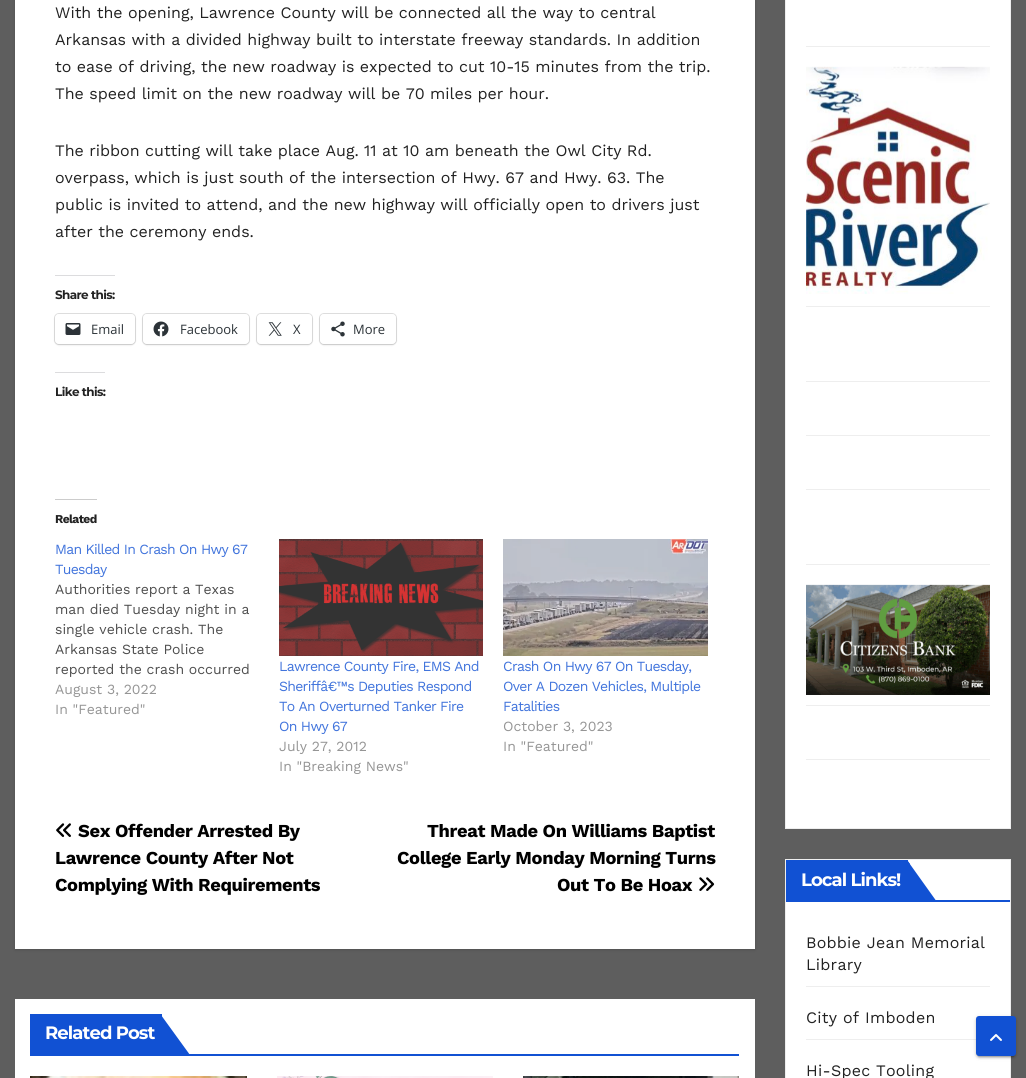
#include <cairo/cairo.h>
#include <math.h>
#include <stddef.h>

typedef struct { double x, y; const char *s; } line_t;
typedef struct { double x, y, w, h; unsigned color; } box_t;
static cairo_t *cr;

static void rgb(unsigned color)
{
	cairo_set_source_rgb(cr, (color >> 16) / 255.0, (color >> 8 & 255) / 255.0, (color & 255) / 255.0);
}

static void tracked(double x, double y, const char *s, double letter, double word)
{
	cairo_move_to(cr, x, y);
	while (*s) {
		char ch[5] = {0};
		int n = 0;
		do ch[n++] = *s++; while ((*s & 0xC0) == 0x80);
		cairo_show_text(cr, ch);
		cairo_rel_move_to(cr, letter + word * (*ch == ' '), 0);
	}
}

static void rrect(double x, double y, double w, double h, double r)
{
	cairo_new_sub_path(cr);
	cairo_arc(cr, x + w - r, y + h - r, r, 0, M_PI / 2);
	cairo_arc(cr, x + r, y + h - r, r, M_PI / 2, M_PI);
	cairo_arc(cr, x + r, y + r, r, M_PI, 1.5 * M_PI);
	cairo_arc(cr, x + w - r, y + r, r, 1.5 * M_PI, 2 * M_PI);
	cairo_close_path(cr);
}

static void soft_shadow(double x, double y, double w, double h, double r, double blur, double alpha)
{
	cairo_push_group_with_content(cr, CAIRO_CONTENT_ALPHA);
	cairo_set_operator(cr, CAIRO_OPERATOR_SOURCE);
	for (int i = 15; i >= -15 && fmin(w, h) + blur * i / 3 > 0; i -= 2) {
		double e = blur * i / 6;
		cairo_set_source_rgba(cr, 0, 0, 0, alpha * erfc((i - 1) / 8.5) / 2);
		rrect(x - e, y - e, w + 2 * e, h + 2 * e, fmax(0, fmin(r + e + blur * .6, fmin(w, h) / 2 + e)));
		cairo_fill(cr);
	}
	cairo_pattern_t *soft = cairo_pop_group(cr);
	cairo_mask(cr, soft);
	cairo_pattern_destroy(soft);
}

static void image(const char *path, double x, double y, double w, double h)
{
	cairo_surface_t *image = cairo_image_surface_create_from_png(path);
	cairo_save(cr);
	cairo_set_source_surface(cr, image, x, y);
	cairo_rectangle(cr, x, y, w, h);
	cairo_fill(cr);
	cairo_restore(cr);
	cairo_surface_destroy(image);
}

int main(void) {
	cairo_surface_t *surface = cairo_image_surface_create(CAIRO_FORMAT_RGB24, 1026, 1078);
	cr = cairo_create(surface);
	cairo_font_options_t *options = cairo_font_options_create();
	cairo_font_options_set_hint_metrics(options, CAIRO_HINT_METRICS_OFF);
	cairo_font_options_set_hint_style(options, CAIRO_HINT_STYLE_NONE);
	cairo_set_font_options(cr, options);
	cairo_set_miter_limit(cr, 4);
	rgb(0x5e5e5e);
	cairo_paint(cr);
	rgb(0x000000);
	soft_shadow(15, -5, 740, 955, 0, 1.5, 0.15);
	rgb(0xffffff);
	cairo_rectangle(cr, 15, 0, 740, 949);
	cairo_fill(cr);
	rgb(0xdcdcde);
	cairo_rectangle(cr, 55, 275, 60, 1);
	cairo_fill(cr);
	rrect(54.5, 313.5, 81, 31, 4.5);
	rgb(0xe0e0e0);
	cairo_set_line_width(cr, 1);
	cairo_stroke(cr);
	rgb(0x000000);
	soft_shadow(55, 315, 80, 30, 4, 1, 0.12);
	rgb(0xffffff);
	rrect(55, 314, 80, 30, 4);
	cairo_fill(cr);
	image("img/1.png", 65, 323, 16, 12);
	rrect(142.5, 313.5, 107, 31, 4.5);
	rgb(0xe0e0e0);
	cairo_stroke(cr);
	rgb(0x000000);
	soft_shadow(143, 315, 106, 30, 4, 1, 0.12);
	rgb(0xffffff);
	rrect(143, 314, 106, 30, 4);
	cairo_fill(cr);
	image("img/2.png", 153, 321, 16, 16);
	rrect(256.5, 313.5, 56, 31, 4.5);
	rgb(0xe0e0e0);
	cairo_stroke(cr);
	rgb(0x000000);
	soft_shadow(257, 315, 55, 30, 4, 1, 0.12);
	rgb(0xffffff);
	rrect(257, 314, 55, 30, 4);
	cairo_fill(cr);
	image("img/3.png", 268, 322, 14, 14);
	rrect(319.5, 313.5, 77, 31, 4.5);
	rgb(0xe0e0e0);
	cairo_stroke(cr);
	rgb(0x000000);
	soft_shadow(320, 315, 76, 30, 4, 1, 0.12);
	rgb(0xffffff);
	rrect(320, 314, 76, 30, 4);
	cairo_fill(cr);
	image("img/4.png", 331, 321, 14, 16);
	rgb(0xdcdcde);
	cairo_rectangle(cr, 55, 372, 50, 1);
	cairo_fill(cr);
	rgb(0xcccccc);
	cairo_rectangle(cr, 55, 499, 42, 1);
	cairo_fill(cr);
	image("img/5.png", 279, 539, 204, 117);
	image("img/6.png", 503, 539, 205, 117);
	image("img/7.png", 56, 823, 15, 14);
	image("img/8.png", 699, 877, 16, 14);
	{
		static const box_t items[] = {
			{15, 999, 740, 79, 0xffffff},
			{30, 1054, 709, 2, 0x1151d3},
			{30, 1014, 132, 40, 0x1151d3},
		};
		for (size_t i = 0; i < sizeof items / sizeof *items; i++) {
			rgb(items[i].color);
			cairo_rectangle(cr, items[i].x, items[i].y, items[i].w, items[i].h);
			cairo_fill(cr);
		}
	}
	cairo_new_path(cr);
	cairo_move_to(cr, 190, 1055);
	cairo_line_to(cr, 161, 1055);
	cairo_line_to(cr, 161, 1015);
	cairo_close_path(cr);
	cairo_fill(cr);
	image("img/9.png", 30, 1076, 217, 2);
	image("img/10.png", 277, 1076, 216, 2);
	image("img/11.png", 523, 1076, 216, 2);
	rgb(0xffffff);
	cairo_rectangle(cr, 785.5, -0.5, 225, 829);
	cairo_fill_preserve(cr);
	rgb(0xeeeeee);
	cairo_stroke(cr);
	cairo_rectangle(cr, 806, 46, 184, 1);
	cairo_fill(cr);
	cairo_rectangle(cr, 806, 306, 184, 1);
	cairo_fill(cr);
	image("img/12.png", 806, 66, 184, 228);
	{
		static const box_t items[] = {
			{806, 381, 184, 1, 0xeeeeee},
			{806, 435, 184, 1, 0xeeeeee},
			{806, 489, 184, 1, 0xeeeeee},
			{806, 564, 184, 1, 0xeeeeee},
			{806, 705, 184, 1, 0xeeeeee},
		};
		for (size_t i = 0; i < sizeof items / sizeof *items; i++) {
			rgb(items[i].color);
			cairo_rectangle(cr, items[i].x, items[i].y, items[i].w, items[i].h);
			cairo_fill(cr);
		}
	}
	image("img/13.png", 806, 584, 184, 111);
	cairo_rectangle(cr, 806, 759, 184, 1);
	cairo_fill(cr);
	rgb(0xffffff);
	cairo_rectangle(cr, 785.5, 859.5, 225, 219);
	cairo_fill_preserve(cr);
	rgb(0xeeeeee);
	cairo_stroke(cr);
	rgb(0x1151d3);
	cairo_rectangle(cr, 786, 900, 224, 2);
	cairo_fill(cr);
	cairo_rectangle(cr, 786, 860, 122, 40);
	cairo_fill(cr);
	cairo_new_path(cr);
	cairo_move_to(cr, 937, 902);
	cairo_line_to(cr, 907, 902);
	cairo_line_to(cr, 907, 860);
	cairo_close_path(cr);
	cairo_fill(cr);
	cairo_new_path(cr);
	cairo_move_to(cr, 907, 902);
	cairo_line_to(cr, 910, 899);
	cairo_line_to(cr, 910, 864);
	cairo_line_to(cr, 907, 860);
	cairo_close_path(cr);
	cairo_fill(cr);
	rgb(0xeeeeee);
	cairo_rectangle(cr, 806, 986, 184, 1);
	cairo_fill(cr);
	cairo_rectangle(cr, 806, 1039, 170, 1);
	cairo_fill(cr);
	rgb(0x000000);
	soft_shadow(976, 1017, 40, 40, 3, 2.5, 0.12);
	soft_shadow(978, 1021, 36, 36, 1, 0.5, 0.2);
	soft_shadow(976, 1018, 40, 40, 3, 1, 0.14);
	rgb(0x1151d3);
	rrect(977, 1017, 38, 38, 2);
	cairo_fill_preserve(cr);
	cairo_set_line_width(cr, 2);
	cairo_stroke(cr);
	image("img/14.png", 990, 1034, 12, 7);
	cairo_select_font_face(cr, "Work Sans", CAIRO_FONT_SLANT_NORMAL, CAIRO_FONT_WEIGHT_NORMAL);
	cairo_set_font_size(cr, 16);
	rgb(0x222222);
	{
		static const line_t items[] = {
			{55, 18, "With the opening, Lawrence County will be connected all the way to central"},
			{55, 45, "Arkansas with a divided highway built to interstate freeway standards. In addition"},
			{55, 72, "to ease of driving, the new roadway is expected to cut 10-15 minutes from the trip."},
			{55, 99, "The speed limit on the new roadway will be 70 miles per hour."},
			{55, 156, "The ribbon cutting will take place Aug. 11 at 10 am beneath the Owl City Rd."},
			{55, 183, "overpass, which is just south of the intersection of Hwy. 67 and Hwy. 63. The"},
			{55, 210, "public is invited to attend, and the new highway will officially open to drivers just"},
			{55, 237, "after the ceremony ends."},
		};
		for (size_t i = 0; i < sizeof items / sizeof *items; i++) {
			cairo_move_to(cr, items[i].x, items[i].y);
			cairo_show_text(cr, items[i].s);
		}
	}
	cairo_select_font_face(cr, "Montserrat", CAIRO_FONT_SLANT_NORMAL, CAIRO_FONT_WEIGHT_BOLD);
	cairo_set_font_size(cr, 12);
	tracked(55, 299, "Share this:", -0.6, 0);
	cairo_select_font_face(cr, "Open Sans", CAIRO_FONT_SLANT_NORMAL, CAIRO_FONT_WEIGHT_NORMAL);
	cairo_set_font_size(cr, 13);
	rgb(0x2c3338);
	{
		static const line_t items[] = {
			{91, 334, "Email"},
			{180, 334, "Facebook"},
			{293, 334, "X"},
			{353, 334, "More"},
		};
		for (size_t i = 0; i < sizeof items / sizeof *items; i++) {
			cairo_move_to(cr, items[i].x, items[i].y);
			cairo_show_text(cr, items[i].s);
		}
	}
	cairo_select_font_face(cr, "Montserrat", CAIRO_FONT_SLANT_NORMAL, CAIRO_FONT_WEIGHT_BOLD);
	cairo_set_font_size(cr, 12);
	rgb(0x222222);
	tracked(55, 396, "Like this:", -0.6, 0);
	cairo_select_font_face(cr, "Work Sans", CAIRO_FONT_SLANT_NORMAL, CAIRO_FONT_WEIGHT_BOLD);
	tracked(55, 523, "Related", -0.6, 0);
	cairo_select_font_face(cr, "Work Sans", CAIRO_FONT_SLANT_NORMAL, CAIRO_FONT_WEIGHT_NORMAL);
	cairo_set_font_size(cr, 14);
	rgb(0x4174dc);
	tracked(55, 554, "Man Killed In Crash On Hwy 67", -0.7, 0);
	tracked(55, 574, "Tuesday", -0.7, 0);
	rgb(0x4e4e4e);
	{
		static const line_t items[] = {
			{55, 594, "Authorities report a Texas"},
			{55, 614, "man died Tuesday night in a"},
			{55, 634, "single vehicle crash. The"},
			{55, 654, "Arkansas State Police"},
			{55, 674, "reported the crash occurred"},
		};
		for (size_t i = 0; i < sizeof items / sizeof *items; i++) {
			cairo_move_to(cr, items[i].x, items[i].y);
			cairo_show_text(cr, items[i].s);
		}
	}
	rgb(0x959595);
	cairo_move_to(cr, 55, 694);
	cairo_show_text(cr, "August 3, 2022");
	cairo_move_to(cr, 55, 714);
	cairo_show_text(cr, "In \"Featured\"");
	rgb(0x4174dc);
	{
		static const line_t items[] = {
			{279, 671, "Lawrence County Fire, EMS And"},
			{279, 691, "Sheriffâ€™s Deputies Respond"},
			{279, 711, "To An Overturned Tanker Fire"},
			{279, 731, "On Hwy 67"},
		};
		for (size_t i = 0; i < sizeof items / sizeof *items; i++) {
			tracked(items[i].x, items[i].y, items[i].s, -0.7, 0);
		}
	}
	rgb(0x959595);
	cairo_move_to(cr, 279, 751);
	cairo_show_text(cr, "July 27, 2012");
	cairo_move_to(cr, 279, 771);
	cairo_show_text(cr, "In \"Breaking News\"");
	rgb(0x4174dc);
	{
		static const line_t items[] = {
			{503, 671, "Crash On Hwy 67 On Tuesday,"},
			{503, 691, "Over A Dozen Vehicles, Multiple"},
			{503, 711, "Fatalities"},
		};
		for (size_t i = 0; i < sizeof items / sizeof *items; i++) {
			tracked(items[i].x, items[i].y, items[i].s, -0.7, 0);
		}
	}
	rgb(0x959595);
	cairo_move_to(cr, 503, 731);
	cairo_show_text(cr, "October 3, 2023");
	cairo_move_to(cr, 503, 751);
	cairo_show_text(cr, "In \"Featured\"");
	cairo_select_font_face(cr, "Work Sans", CAIRO_FONT_SLANT_NORMAL, CAIRO_FONT_WEIGHT_BOLD);
	cairo_set_font_size(cr, 18.25);
	rgb(0x000000);
	{
		static const line_t items[] = {
			{78, 837, "Sex Offender Arrested By"},
			{55, 864, "Lawrence County After Not"},
			{55, 891, "Complying With Requirements"},
			{427, 837, "Threat Made On Williams Baptist"},
			{397, 864, "College Early Monday Morning Turns"},
			{557, 891, "Out To Be Hoax"},
		};
		for (size_t i = 0; i < sizeof items / sizeof *items; i++) {
			tracked(items[i].x, items[i].y, items[i].s, -0.35, 0);
		}
	}
	cairo_select_font_face(cr, "Montserrat", CAIRO_FONT_SLANT_NORMAL, CAIRO_FONT_WEIGHT_BOLD);
	cairo_set_font_size(cr, 18);
	rgb(0xffffff);
	tracked(45, 1039, "Related Post", -0.9, 0);
	tracked(801, 886, "Local Links!", -0.9, 0);
	cairo_select_font_face(cr, "Work Sans", CAIRO_FONT_SLANT_NORMAL, CAIRO_FONT_WEIGHT_NORMAL);
	cairo_set_font_size(cr, 16);
	rgb(0x222222);
	{
		static const line_t items[] = {
			{806, 948, "Bobbie Jean Memorial"},
			{806, 970, "Library"},
			{806, 1023, "City of Imboden"},
			{806, 1076, "Hi-Spec Tooling"},
		};
		for (size_t i = 0; i < sizeof items / sizeof *items; i++) {
			tracked(items[i].x, items[i].y, items[i].s, 0.25, 0);
		}
	}
	cairo_surface_write_to_png(surface, "page.png");
	cairo_font_options_destroy(options);
	cairo_destroy(cr);
	cairo_surface_destroy(surface);
	return 0;
}
